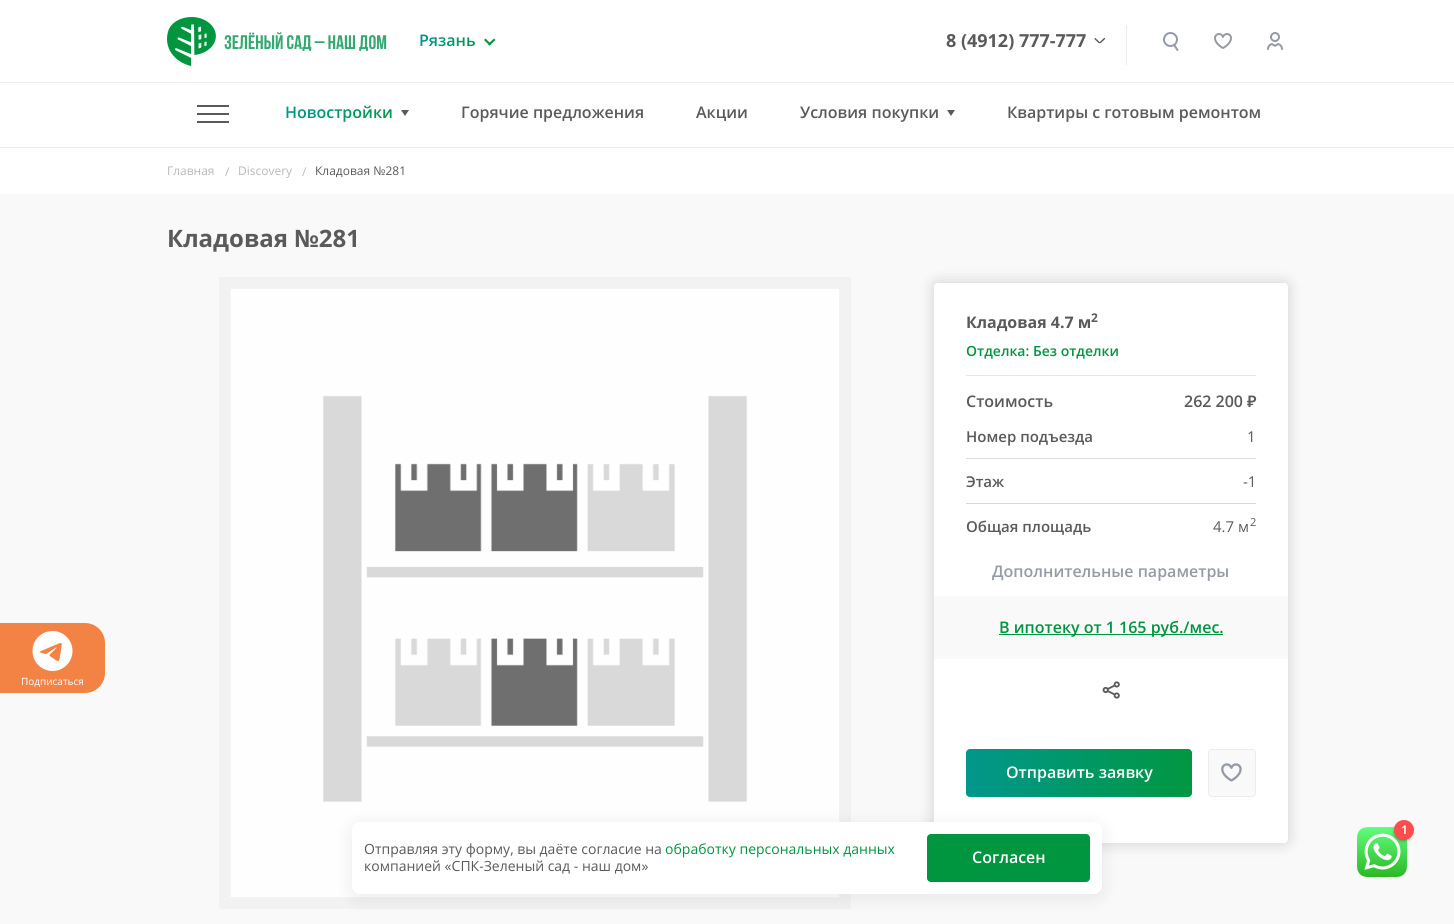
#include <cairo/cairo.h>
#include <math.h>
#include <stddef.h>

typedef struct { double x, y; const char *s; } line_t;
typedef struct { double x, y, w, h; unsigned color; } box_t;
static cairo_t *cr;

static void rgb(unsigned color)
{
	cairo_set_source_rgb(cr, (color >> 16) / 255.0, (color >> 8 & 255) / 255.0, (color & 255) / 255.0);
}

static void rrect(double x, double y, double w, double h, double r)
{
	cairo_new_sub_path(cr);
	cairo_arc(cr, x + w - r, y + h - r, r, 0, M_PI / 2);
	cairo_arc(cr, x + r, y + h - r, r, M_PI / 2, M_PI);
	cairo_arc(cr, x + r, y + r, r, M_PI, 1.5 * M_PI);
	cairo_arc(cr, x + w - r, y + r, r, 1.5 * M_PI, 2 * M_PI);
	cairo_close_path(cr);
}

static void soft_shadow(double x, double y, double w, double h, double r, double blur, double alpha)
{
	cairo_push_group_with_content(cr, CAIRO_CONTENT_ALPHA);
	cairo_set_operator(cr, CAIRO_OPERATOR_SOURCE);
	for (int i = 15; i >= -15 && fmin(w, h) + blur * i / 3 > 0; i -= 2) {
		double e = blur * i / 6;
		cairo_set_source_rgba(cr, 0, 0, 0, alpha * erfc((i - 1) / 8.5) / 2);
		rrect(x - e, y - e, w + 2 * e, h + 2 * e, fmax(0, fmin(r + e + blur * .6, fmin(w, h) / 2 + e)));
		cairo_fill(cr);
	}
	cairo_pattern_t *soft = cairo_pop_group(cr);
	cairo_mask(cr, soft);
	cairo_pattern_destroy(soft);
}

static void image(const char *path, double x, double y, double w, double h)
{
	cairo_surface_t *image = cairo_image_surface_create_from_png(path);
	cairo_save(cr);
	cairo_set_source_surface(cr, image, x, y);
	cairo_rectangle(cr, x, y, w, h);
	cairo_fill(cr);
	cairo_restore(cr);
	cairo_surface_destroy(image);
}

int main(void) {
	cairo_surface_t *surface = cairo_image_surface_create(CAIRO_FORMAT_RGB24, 1454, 924);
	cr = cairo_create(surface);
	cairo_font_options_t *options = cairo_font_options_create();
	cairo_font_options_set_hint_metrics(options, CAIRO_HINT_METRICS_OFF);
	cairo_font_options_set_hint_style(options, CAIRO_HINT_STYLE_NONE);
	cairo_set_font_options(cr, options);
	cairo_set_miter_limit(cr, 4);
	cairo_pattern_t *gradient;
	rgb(0xffffff);
	cairo_paint(cr);
	rgb(0xececec);
	cairo_rectangle(cr, 0, 82, 1454, 1);
	cairo_fill(cr);
	image("img/1.png", 167, 17, 49, 49);
	image("img/2.png", 224, 32, 163, 19);
	rgb(0x029844);
	cairo_new_path(cr);
	cairo_move_to(cr, 494, 38.5);
	cairo_line_to(cr, 495.5, 40);
	cairo_line_to(cr, 489.5, 45.5);
	cairo_line_to(cr, 488, 44);
	cairo_close_path(cr);
	cairo_fill(cr);
	cairo_new_path(cr);
	cairo_move_to(cr, 485.5, 38.5);
	cairo_line_to(cr, 491, 44);
	cairo_line_to(cr, 489.5, 45.5);
	cairo_line_to(cr, 484, 40);
	cairo_close_path(cr);
	cairo_fill(cr);
	rgb(0xececec);
	cairo_rectangle(cr, 1126, 25, 1, 40);
	cairo_fill(cr);
	image("img/3.png", 1094, 37, 11, 7);
	image("img/4.png", 1163, 32, 16, 19);
	image("img/5.png", 1214, 33, 18, 16);
	image("img/6.png", 1267, 32, 16, 18);
	{
		static const box_t items[] = {
			{0, 147, 1454, 1, 0xececec},
			{197, 113, 32, 2, 0x5a5a5a},
			{197, 105, 32, 2, 0x5a5a5a},
			{197, 121, 32, 2, 0x5a5a5a},
		};
		for (size_t i = 0; i < sizeof items / sizeof *items; i++) {
			rgb(items[i].color);
			cairo_rectangle(cr, items[i].x, items[i].y, items[i].w, items[i].h);
			cairo_fill(cr);
		}
	}
	cairo_new_path(cr);
	cairo_move_to(cr, 401, 110);
	cairo_line_to(cr, 409, 110);
	cairo_line_to(cr, 405, 116);
	cairo_close_path(cr);
	cairo_fill(cr);
	cairo_new_path(cr);
	cairo_move_to(cr, 947, 110);
	cairo_line_to(cr, 955, 110);
	cairo_line_to(cr, 951, 116);
	cairo_close_path(cr);
	cairo_fill(cr);
	rgb(0xf9f9f9);
	cairo_rectangle(cr, 0, 194, 1454, 730);
	cairo_fill(cr);
	rgb(0xf38345);
	cairo_new_path(cr);
	cairo_move_to(cr, 0, 623);
	cairo_line_to(cr, 85, 623);
	cairo_curve_to(cr, 96, 623, 105, 632, 105, 643);
	cairo_line_to(cr, 105, 673);
	cairo_curve_to(cr, 105, 684, 96, 693, 85, 693);
	cairo_line_to(cr, 0, 693);
	cairo_close_path(cr);
	cairo_fill(cr);
	image("img/7.png", 32, 631, 41, 40);
	image("img/8.png", 219, 277, 632, 632);
	rgb(0x000000);
	soft_shadow(934, 283, 354, 560, 4, 8, 0.16);
	rgb(0xffffff);
	rrect(934, 283, 354, 560, 4);
	cairo_fill(cr);
	{
		static const box_t items[] = {
			{966, 375, 290, 1, 0xe6e6e6},
			{966, 458, 290, 1, 0xd9d9d9},
			{966, 503, 290, 1, 0xd9d9d9},
			{934, 596, 354, 63, 0xf9f9f9},
			{999, 634, 224, 1, 0x009640},
		};
		for (size_t i = 0; i < sizeof items / sizeof *items; i++) {
			rgb(items[i].color);
			cairo_rectangle(cr, items[i].x, items[i].y, items[i].w, items[i].h);
			cairo_fill(cr);
		}
	}
	image("img/9.png", 1102, 681, 18, 18);
	gradient = cairo_pattern_create_linear(966, 773, 1192, 773);
	cairo_pattern_add_color_stop_rgba(gradient, 0, 0.004, 0.592, 0.549, 1);
	cairo_pattern_add_color_stop_rgba(gradient, 1, 0.004, 0.592, 0.255, 1);
	cairo_set_source(cr, gradient);
	cairo_pattern_destroy(gradient);
	rrect(966, 749, 226, 48, 4);
	cairo_fill(cr);
	rgb(0xf9f9f9);
	rrect(1208, 749, 48, 48, 4);
	cairo_fill(cr);
	image("img/10.png", 1221, 763, 21, 19);
	rrect(1208.5, 749.5, 47, 47, 3.5);
	rgb(0xececec);
	cairo_set_line_width(cr, 1);
	cairo_stroke(cr);
	rgb(0x000000);
	soft_shadow(352, 826, 750, 72, 8, 10, 0.08);
	rgb(0xffffff);
	rrect(352, 822, 750, 72, 8);
	cairo_fill(cr);
	rgb(0x009640);
	rrect(927, 834, 163, 48, 4);
	cairo_fill(cr);
	image("img/11.png", 1357, 827, 50, 50);
	rgb(0x535353);
	soft_shadow(1395, 824, 16, 16, 8, 2, 1);
	rgb(0xff4c4c);
	cairo_arc(cr, 1404, 830, 10, 0, 2 * M_PI);
	cairo_fill(cr);
	cairo_select_font_face(cr, "Open Sans SemiBold", CAIRO_FONT_SLANT_NORMAL, CAIRO_FONT_WEIGHT_NORMAL);
	cairo_set_font_size(cr, 16);
	gradient = cairo_pattern_create_linear(419, 41, 494, 41);
	cairo_pattern_add_color_stop_rgba(gradient, 0, 0.004, 0.592, 0.549, 1);
	cairo_pattern_add_color_stop_rgba(gradient, 1, 0.004, 0.592, 0.255, 1);
	cairo_set_source(cr, gradient);
	cairo_pattern_destroy(gradient);
	cairo_move_to(cr, 419, 46);
	cairo_show_text(cr, "Рязань");
	cairo_select_font_face(cr, "Open Sans", CAIRO_FONT_SLANT_NORMAL, CAIRO_FONT_WEIGHT_BOLD);
	cairo_set_font_size(cr, 18);
	rgb(0x5a5a5a);
	cairo_move_to(cr, 946, 47);
	cairo_show_text(cr, "8 (4912) 777-777");
	cairo_select_font_face(cr, "Open Sans SemiBold", CAIRO_FONT_SLANT_NORMAL, CAIRO_FONT_WEIGHT_NORMAL);
	cairo_set_font_size(cr, 16);
	gradient = cairo_pattern_create_linear(285, 113, 409, 113);
	cairo_pattern_add_color_stop_rgba(gradient, 0, 0.004, 0.592, 0.549, 1);
	cairo_pattern_add_color_stop_rgba(gradient, 1, 0.004, 0.592, 0.255, 1);
	cairo_set_source(cr, gradient);
	cairo_pattern_destroy(gradient);
	cairo_move_to(cr, 285, 118);
	cairo_show_text(cr, "Новостройки");
	rgb(0x5a5a5a);
	{
		static const line_t items[] = {
			{461, 118, "Горячие предложения"},
			{696, 118, "Акции"},
			{800, 118, "Условия покупки"},
			{1007, 118, "Квартиры с готовым ремонтом"},
		};
		for (size_t i = 0; i < sizeof items / sizeof *items; i++) {
			cairo_move_to(cr, items[i].x, items[i].y);
			cairo_show_text(cr, items[i].s);
		}
	}
	cairo_select_font_face(cr, "Open Sans", CAIRO_FONT_SLANT_NORMAL, CAIRO_FONT_WEIGHT_NORMAL);
	cairo_set_font_size(cr, 10);
	rgb(0xffffff);
	cairo_move_to(cr, 21, 685);
	cairo_show_text(cr, "Подписаться");
	cairo_set_font_size(cr, 12);
	rgb(0xb9b9b9);
	{
		static const line_t items[] = {
			{167, 175, "Главная"},
			{225, 176, "/"},
			{238, 175, "Discovery"},
			{302, 176, "/"},
		};
		for (size_t i = 0; i < sizeof items / sizeof *items; i++) {
			cairo_move_to(cr, items[i].x, items[i].y);
			cairo_show_text(cr, items[i].s);
		}
	}
	rgb(0x5a5a5a);
	cairo_move_to(cr, 315, 175);
	cairo_show_text(cr, "Кладовая №281");
	cairo_select_font_face(cr, "Open Sans", CAIRO_FONT_SLANT_NORMAL, CAIRO_FONT_WEIGHT_BOLD);
	cairo_set_font_size(cr, 24);
	cairo_move_to(cr, 167, 247);
	cairo_show_text(cr, "Кладовая №281");
	cairo_set_font_size(cr, 16);
	cairo_move_to(cr, 966, 328);
	cairo_show_text(cr, "Кладовая 4.7 м");
	cairo_set_font_size(cr, 12);
	cairo_move_to(cr, 1091, 322);
	cairo_show_text(cr, "2");
	cairo_select_font_face(cr, "Open Sans SemiBold", CAIRO_FONT_SLANT_NORMAL, CAIRO_FONT_WEIGHT_NORMAL);
	cairo_set_font_size(cr, 14);
	rgb(0x009640);
	cairo_move_to(cr, 966, 356);
	cairo_show_text(cr, "Отделка: Без отделки");
	cairo_set_font_size(cr, 16);
	rgb(0x5a5a5a);
	cairo_move_to(cr, 966, 407);
	cairo_show_text(cr, "Стоимость");
	cairo_move_to(cr, 1184, 407);
	cairo_show_text(cr, "262 200");
	cairo_select_font_face(cr, "Noto Sans SemiBold", CAIRO_FONT_SLANT_NORMAL, CAIRO_FONT_WEIGHT_NORMAL);
	cairo_move_to(cr, 1247, 407);
	cairo_show_text(cr, "₽");
	cairo_select_font_face(cr, "Open Sans SemiBold", CAIRO_FONT_SLANT_NORMAL, CAIRO_FONT_WEIGHT_NORMAL);
	cairo_set_font_size(cr, 15);
	cairo_move_to(cr, 966, 442);
	cairo_show_text(cr, "Номер подъезда");
	cairo_select_font_face(cr, "Open Sans", CAIRO_FONT_SLANT_NORMAL, CAIRO_FONT_WEIGHT_NORMAL);
	cairo_move_to(cr, 1247, 442);
	cairo_show_text(cr, "1");
	cairo_select_font_face(cr, "Open Sans SemiBold", CAIRO_FONT_SLANT_NORMAL, CAIRO_FONT_WEIGHT_NORMAL);
	cairo_move_to(cr, 966, 487);
	cairo_show_text(cr, "Этаж");
	cairo_select_font_face(cr, "Open Sans", CAIRO_FONT_SLANT_NORMAL, CAIRO_FONT_WEIGHT_NORMAL);
	cairo_move_to(cr, 1243, 487);
	cairo_show_text(cr, "-1");
	cairo_select_font_face(cr, "Open Sans SemiBold", CAIRO_FONT_SLANT_NORMAL, CAIRO_FONT_WEIGHT_NORMAL);
	cairo_move_to(cr, 966, 532);
	cairo_show_text(cr, "Общая площадь");
	cairo_select_font_face(cr, "Open Sans", CAIRO_FONT_SLANT_NORMAL, CAIRO_FONT_WEIGHT_NORMAL);
	cairo_move_to(cr, 1213, 532);
	cairo_show_text(cr, "4.7 м");
	cairo_set_font_size(cr, 11);
	cairo_move_to(cr, 1250, 526);
	cairo_show_text(cr, "2");
	cairo_select_font_face(cr, "Open Sans SemiBold", CAIRO_FONT_SLANT_NORMAL, CAIRO_FONT_WEIGHT_NORMAL);
	cairo_set_font_size(cr, 16);
	rgb(0x959ba6);
	cairo_move_to(cr, 992, 577);
	cairo_show_text(cr, "Дополнительные параметры");
	rgb(0x009640);
	cairo_move_to(cr, 999, 633);
	cairo_show_text(cr, "В ипотеку от 1 165 руб./мес.");
	rgb(0xffffff);
	cairo_move_to(cr, 1006, 778);
	cairo_show_text(cr, "Отправить заявку");
	cairo_select_font_face(cr, "Open Sans", CAIRO_FONT_SLANT_NORMAL, CAIRO_FONT_WEIGHT_NORMAL);
	cairo_set_font_size(cr, 14);
	rgb(0x5a5a5a);
	cairo_move_to(cr, 364, 854);
	cairo_show_text(cr, "Отправляя эту форму, вы даёте согласие на");
	rgb(0x009640);
	cairo_move_to(cr, 665, 854);
	cairo_show_text(cr, "обработку персональных данных");
	rgb(0x5a5a5a);
	cairo_move_to(cr, 364, 871);
	cairo_show_text(cr, "компанией «СПК-Зеленый сад - наш дом»");
	cairo_select_font_face(cr, "Open Sans SemiBold", CAIRO_FONT_SLANT_NORMAL, CAIRO_FONT_WEIGHT_NORMAL);
	cairo_set_font_size(cr, 16);
	rgb(0xffffff);
	cairo_move_to(cr, 972, 863);
	cairo_show_text(cr, "Согласен");
	cairo_select_font_face(cr, "Noto Sans SemiBold", CAIRO_FONT_SLANT_NORMAL, CAIRO_FONT_WEIGHT_NORMAL);
	cairo_set_font_size(cr, 12);
	cairo_move_to(cr, 1401, 834);
	cairo_show_text(cr, "1");
	cairo_surface_write_to_png(surface, "page.png");
	cairo_font_options_destroy(options);
	cairo_destroy(cr);
	cairo_surface_destroy(surface);
	return 0;
}
